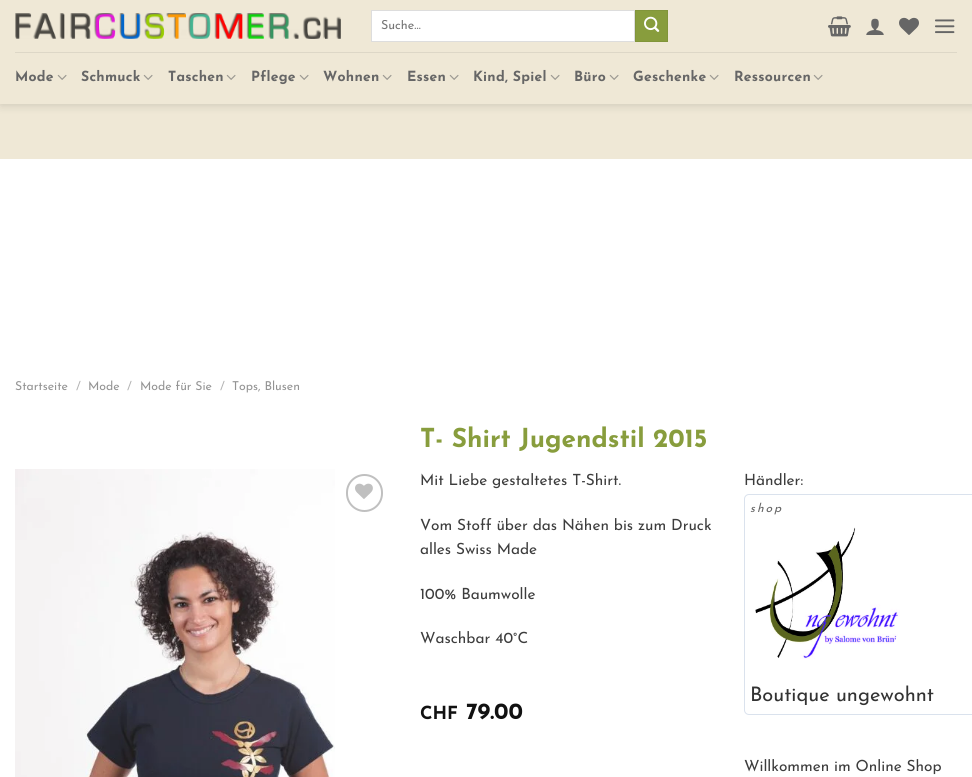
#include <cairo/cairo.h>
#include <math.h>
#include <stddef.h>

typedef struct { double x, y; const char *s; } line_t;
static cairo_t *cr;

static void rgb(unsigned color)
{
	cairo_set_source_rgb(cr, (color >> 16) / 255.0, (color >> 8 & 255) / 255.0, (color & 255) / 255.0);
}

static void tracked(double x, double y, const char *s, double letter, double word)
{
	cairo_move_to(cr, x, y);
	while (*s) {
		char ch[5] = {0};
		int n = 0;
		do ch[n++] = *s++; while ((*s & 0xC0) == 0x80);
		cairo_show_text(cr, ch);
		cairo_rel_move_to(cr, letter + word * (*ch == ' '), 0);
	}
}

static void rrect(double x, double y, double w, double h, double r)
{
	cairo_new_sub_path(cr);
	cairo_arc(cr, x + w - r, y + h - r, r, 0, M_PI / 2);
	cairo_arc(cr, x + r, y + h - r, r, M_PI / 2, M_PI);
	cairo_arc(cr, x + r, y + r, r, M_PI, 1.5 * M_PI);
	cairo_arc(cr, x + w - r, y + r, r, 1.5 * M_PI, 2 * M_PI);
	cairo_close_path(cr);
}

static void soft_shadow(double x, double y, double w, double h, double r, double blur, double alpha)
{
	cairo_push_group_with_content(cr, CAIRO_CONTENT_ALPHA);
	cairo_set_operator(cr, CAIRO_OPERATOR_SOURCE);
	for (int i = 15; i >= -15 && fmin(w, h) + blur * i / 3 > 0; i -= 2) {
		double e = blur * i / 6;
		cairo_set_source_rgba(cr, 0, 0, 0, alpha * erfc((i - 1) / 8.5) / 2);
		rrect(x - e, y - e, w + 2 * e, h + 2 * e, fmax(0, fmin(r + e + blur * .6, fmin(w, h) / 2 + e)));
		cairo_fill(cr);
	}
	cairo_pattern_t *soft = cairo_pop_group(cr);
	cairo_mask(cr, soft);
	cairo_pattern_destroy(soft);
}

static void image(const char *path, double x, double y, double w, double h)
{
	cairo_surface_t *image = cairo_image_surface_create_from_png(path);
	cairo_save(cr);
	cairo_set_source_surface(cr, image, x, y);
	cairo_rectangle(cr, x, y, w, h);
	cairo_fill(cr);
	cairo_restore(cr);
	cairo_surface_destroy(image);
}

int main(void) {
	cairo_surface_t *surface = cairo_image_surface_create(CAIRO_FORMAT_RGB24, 972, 777);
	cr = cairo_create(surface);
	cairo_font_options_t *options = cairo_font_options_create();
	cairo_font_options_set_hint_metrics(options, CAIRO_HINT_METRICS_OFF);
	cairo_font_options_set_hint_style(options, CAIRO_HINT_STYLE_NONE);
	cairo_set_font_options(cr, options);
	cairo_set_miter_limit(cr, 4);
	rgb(0xefe8d6);
	cairo_paint(cr);
	rgb(0xffffff);
	cairo_rectangle(cr, 0, 159, 972, 618);
	cairo_fill(cr);
	rgb(0x000000);
	soft_shadow(1, 1, 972, 104, 0, 5, 0.15);
	rgb(0xefe8d6);
	cairo_rectangle(cr, 0, 0, 972, 104);
	cairo_fill(cr);
	image("img/1.png", 15, 13, 326, 26);
	rgb(0xffffff);
	cairo_rectangle(cr, 371.5, 10.5, 263, 31);
	cairo_fill_preserve(cr);
	rgb(0xdddddd);
	cairo_set_line_width(cr, 1);
	cairo_stroke(cr);
	rgb(0x889d3d);
	cairo_rectangle(cr, 635.5, 10.5, 32, 31);
	cairo_fill_preserve(cr);
	rgb(0x81953a);
	cairo_stroke(cr);
	image("img/2.png", 644, 16, 16, 16);
	image("img/3.png", 828, 16, 23, 21);
	image("img/4.png", 866, 18, 18, 17);
	image("img/5.png", 899, 17, 20, 18);
	image("img/6.png", 935, 19, 20, 15);
	rgb(0xddd7c7);
	cairo_rectangle(cr, 15, 52, 942, 1);
	cairo_fill(cr);
	image("img/7.png", 57, 74, 10, 6);
	image("img/7.png", 143, 74, 10, 6);
	image("img/7.png", 226, 74, 10, 6);
	image("img/7.png", 299, 74, 10, 6);
	image("img/7.png", 382, 74, 10, 6);
	image("img/7.png", 449, 74, 10, 6);
	image("img/7.png", 550, 74, 10, 6);
	image("img/7.png", 609, 74, 10, 6);
	image("img/7.png", 709, 74, 10, 6);
	image("img/7.png", 813, 74, 10, 6);
	image("img/8.png", 15, 469, 320, 308);
	rrect(347, 475, 35, 36, 17.5);
	rgb(0xc0c0c0);
	cairo_set_line_width(cr, 2);
	cairo_stroke(cr);
	image("img/9.png", 355, 483, 18, 16);
	rrect(744.5, 494.5, 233, 220, 4.5);
	rgb(0xdae2ed);
	cairo_set_line_width(cr, 1);
	cairo_stroke(cr);
	image("img/10.png", 755, 527, 145, 132);
	cairo_save(cr);
	cairo_rectangle(cr, 381, 20, 240, 12);
	cairo_clip(cr);
	cairo_select_font_face(cr, "Josefin Sans", CAIRO_FONT_SLANT_NORMAL, CAIRO_FONT_WEIGHT_NORMAL);
	cairo_set_font_size(cr, 12.5);
	rgb(0x757575);
	cairo_move_to(cr, 381, 29);
	cairo_show_text(cr, "Suche…");
	cairo_restore(cr);
	cairo_select_font_face(cr, "Josefin Sans", CAIRO_FONT_SLANT_NORMAL, CAIRO_FONT_WEIGHT_BOLD);
	cairo_set_font_size(cr, 14);
	rgb(0x666666);
	{
		static const line_t items[] = {
			{15, 81, "Mode"},
			{81, 81, "Schmuck"},
			{168, 81, "Taschen"},
			{251, 81, "Pflege"},
			{323, 81, "Wohnen"},
			{407, 81, "Essen"},
			{473, 81, "Kind, Spiel"},
			{574, 81, "Büro"},
			{633, 81, "Geschenke"},
			{734, 81, "Ressourcen"},
		};
		for (size_t i = 0; i < sizeof items / sizeof *items; i++) {
			tracked(items[i].x, items[i].y, items[i].s, 0.25, 0);
		}
	}
	cairo_select_font_face(cr, "Josefin Sans", CAIRO_FONT_SLANT_NORMAL, CAIRO_FONT_WEIGHT_NORMAL);
	cairo_set_font_size(cr, 12.25);
	rgb(0x949494);
	cairo_move_to(cr, 15, 390);
	cairo_show_text(cr, "Startseite");
	rgb(0xb2b2b2);
	cairo_move_to(cr, 76, 390);
	cairo_show_text(cr, "/");
	rgb(0x949494);
	cairo_move_to(cr, 88, 390);
	cairo_show_text(cr, "Mode");
	rgb(0xb2b2b2);
	cairo_move_to(cr, 127, 390);
	cairo_show_text(cr, "/");
	rgb(0x949494);
	cairo_move_to(cr, 140, 390);
	cairo_show_text(cr, "Mode für Sie");
	rgb(0xb2b2b2);
	cairo_move_to(cr, 220, 390);
	cairo_show_text(cr, "/");
	rgb(0x949494);
	cairo_move_to(cr, 232, 390);
	cairo_show_text(cr, "Tops, Blusen");
	cairo_select_font_face(cr, "Josefin Sans", CAIRO_FONT_SLANT_NORMAL, CAIRO_FONT_WEIGHT_BOLD);
	cairo_set_font_size(cr, 26.1);
	rgb(0x889d3d);
	cairo_move_to(cr, 420, 447);
	cairo_show_text(cr, "T- Shirt Jugendstil 2015");
	cairo_select_font_face(cr, "Josefin Sans", CAIRO_FONT_SLANT_NORMAL, CAIRO_FONT_WEIGHT_NORMAL);
	cairo_set_font_size(cr, 15.4);
	rgb(0x3d3d3d);
	{
		static const line_t items[] = {
			{420, 485, "Mit Liebe gestaltetes T-Shirt."},
			{420, 530, "Vom Stoff über das Nähen bis zum Druck"},
			{420, 554, "alles Swiss Made"},
			{420, 599, "100% Baumwolle"},
			{420, 643, "Waschbar 40°C"},
		};
		for (size_t i = 0; i < sizeof items / sizeof *items; i++) {
			cairo_move_to(cr, items[i].x, items[i].y);
			cairo_show_text(cr, items[i].s);
		}
	}
	cairo_select_font_face(cr, "Josefin Sans", CAIRO_FONT_SLANT_NORMAL, CAIRO_FONT_WEIGHT_BOLD);
	cairo_set_font_size(cr, 18);
	rgb(0x111111);
	cairo_move_to(cr, 420, 719);
	cairo_show_text(cr, "CHF");
	cairo_set_font_size(cr, 23);
	cairo_move_to(cr, 466, 719);
	cairo_show_text(cr, "79.00");
	cairo_select_font_face(cr, "Josefin Sans", CAIRO_FONT_SLANT_NORMAL, CAIRO_FONT_WEIGHT_NORMAL);
	cairo_set_font_size(cr, 15.4);
	rgb(0x3d3d3d);
	cairo_move_to(cr, 744, 485);
	cairo_show_text(cr, "Händler:");
	cairo_select_font_face(cr, "Josefin Sans", CAIRO_FONT_SLANT_ITALIC, CAIRO_FONT_WEIGHT_NORMAL);
	cairo_set_font_size(cr, 12);
	rgb(0x666666);
	tracked(750, 512, "shop", 2, 0);
	cairo_select_font_face(cr, "Josefin Sans", CAIRO_FONT_SLANT_NORMAL, CAIRO_FONT_WEIGHT_NORMAL);
	cairo_set_font_size(cr, 20);
	rgb(0x333333);
	cairo_move_to(cr, 750, 701);
	cairo_show_text(cr, "Boutique ungewohnt");
	cairo_set_font_size(cr, 15.4);
	rgb(0x3d3d3d);
	cairo_move_to(cr, 744, 771);
	cairo_show_text(cr, "Willkommen im Online Shop");
	cairo_surface_write_to_png(surface, "page.png");
	cairo_font_options_destroy(options);
	cairo_destroy(cr);
	cairo_surface_destroy(surface);
	return 0;
}
